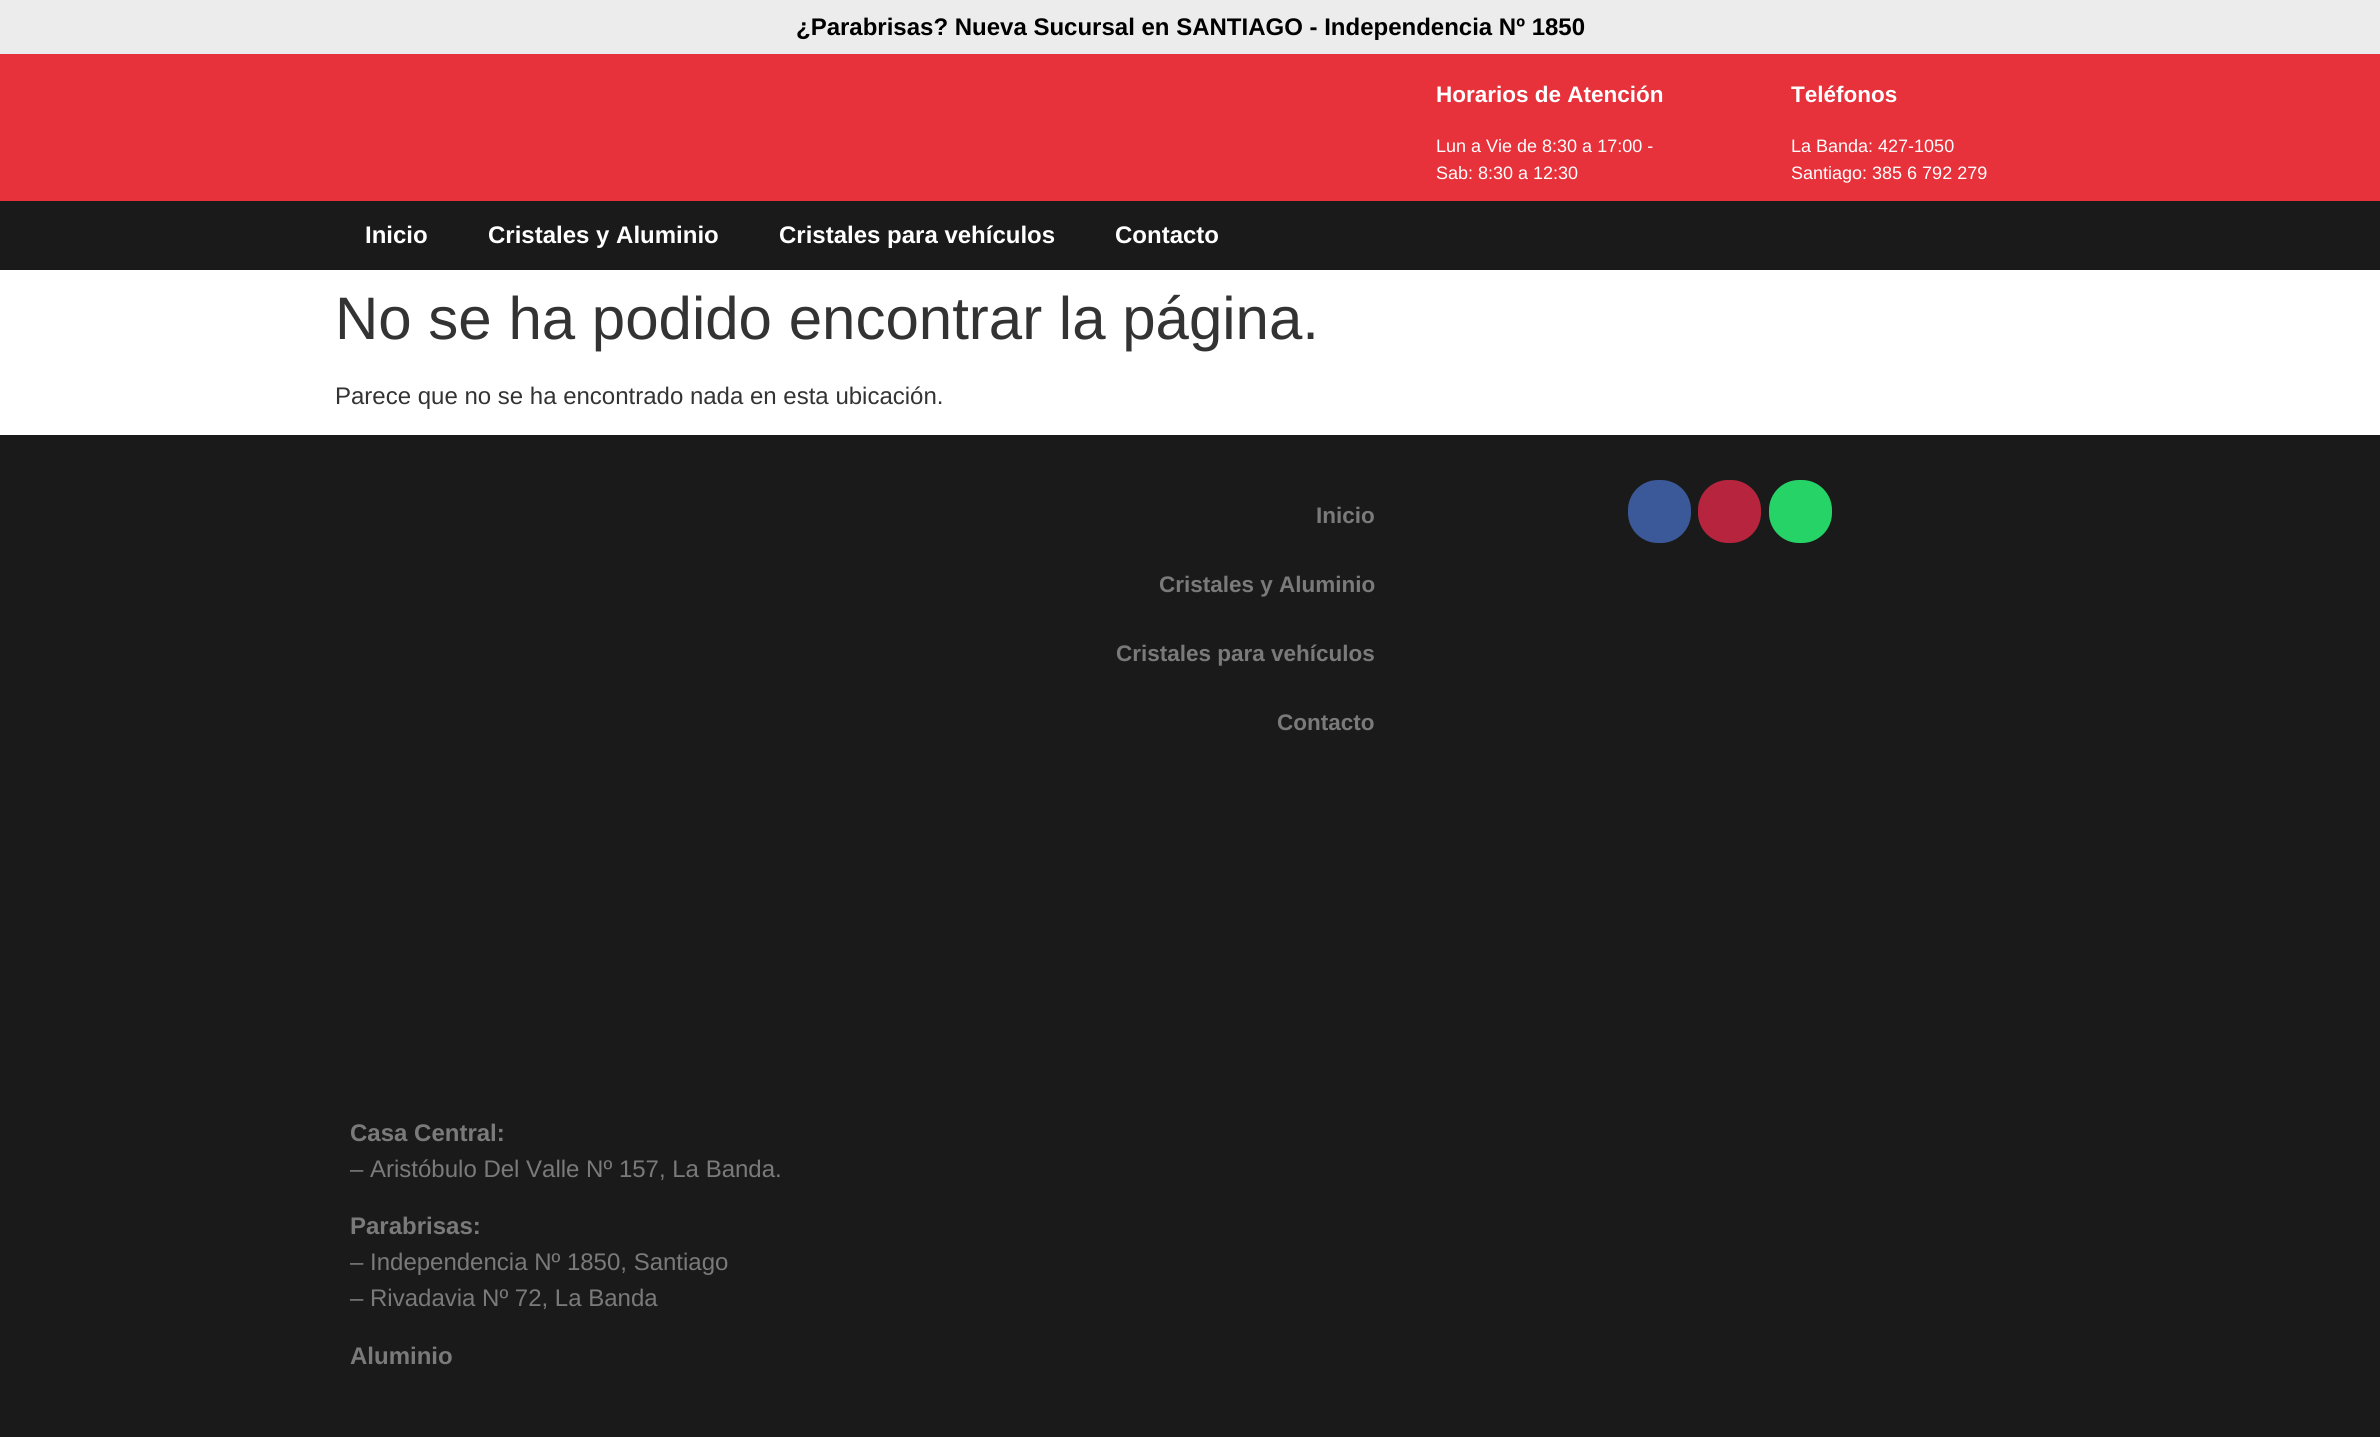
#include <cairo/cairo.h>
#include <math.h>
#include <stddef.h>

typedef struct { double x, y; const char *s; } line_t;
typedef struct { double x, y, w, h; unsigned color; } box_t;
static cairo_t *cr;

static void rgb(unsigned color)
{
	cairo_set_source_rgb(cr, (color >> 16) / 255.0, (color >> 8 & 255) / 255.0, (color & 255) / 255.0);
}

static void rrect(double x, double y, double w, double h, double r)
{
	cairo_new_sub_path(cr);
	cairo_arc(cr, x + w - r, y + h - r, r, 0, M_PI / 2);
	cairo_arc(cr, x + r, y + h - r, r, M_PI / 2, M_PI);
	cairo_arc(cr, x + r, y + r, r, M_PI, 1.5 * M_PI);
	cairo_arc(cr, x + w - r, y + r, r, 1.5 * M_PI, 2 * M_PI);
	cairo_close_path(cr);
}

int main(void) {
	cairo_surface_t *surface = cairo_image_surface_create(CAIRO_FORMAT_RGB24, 2380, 1437);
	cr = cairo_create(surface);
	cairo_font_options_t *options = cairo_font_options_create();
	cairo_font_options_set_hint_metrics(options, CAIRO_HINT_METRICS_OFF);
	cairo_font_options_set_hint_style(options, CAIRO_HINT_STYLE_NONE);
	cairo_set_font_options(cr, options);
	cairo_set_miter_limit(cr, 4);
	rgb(0xffffff);
	cairo_paint(cr);
	{
		static const box_t items[] = {
			{0, 0, 2380, 54, 0xececec},
			{0, 54, 2380, 147, 0xe7313b},
			{0, 201, 2380, 69, 0x1a1a1a},
			{0, 435, 2380, 1002, 0x1a1a1a},
		};
		for (size_t i = 0; i < sizeof items / sizeof *items; i++) {
			rgb(items[i].color);
			cairo_rectangle(cr, items[i].x, items[i].y, items[i].w, items[i].h);
			cairo_fill(cr);
		}
	}
	rgb(0x3b5998);
	rrect(1628, 480, 63, 63, 30);
	cairo_fill(cr);
	rgb(0xb7243d);
	rrect(1698, 480, 63, 63, 30);
	cairo_fill(cr);
	rgb(0x25d366);
	rrect(1769, 480, 63, 63, 30);
	cairo_fill(cr);
	cairo_select_font_face(cr, "Liberation Sans", CAIRO_FONT_SLANT_NORMAL, CAIRO_FONT_WEIGHT_BOLD);
	cairo_set_font_size(cr, 24);
	rgb(0x000000);
	cairo_move_to(cr, 796, 35);
	cairo_show_text(cr, "¿Parabrisas? Nueva Sucursal en SANTIAGO - Independencia Nº 1850");
	cairo_set_font_size(cr, 22.5);
	rgb(0xffffff);
	cairo_move_to(cr, 1436, 102);
	cairo_show_text(cr, "Horarios de Atención");
	cairo_select_font_face(cr, "Liberation Sans", CAIRO_FONT_SLANT_NORMAL, CAIRO_FONT_WEIGHT_NORMAL);
	cairo_set_font_size(cr, 18);
	cairo_move_to(cr, 1436, 152);
	cairo_show_text(cr, "Lun a Vie de 8:30 a 17:00 -");
	cairo_move_to(cr, 1436, 179);
	cairo_show_text(cr, "Sab: 8:30 a 12:30");
	cairo_select_font_face(cr, "Liberation Sans", CAIRO_FONT_SLANT_NORMAL, CAIRO_FONT_WEIGHT_BOLD);
	cairo_set_font_size(cr, 22.5);
	cairo_move_to(cr, 1791, 102);
	cairo_show_text(cr, "Teléfonos");
	cairo_select_font_face(cr, "Liberation Sans", CAIRO_FONT_SLANT_NORMAL, CAIRO_FONT_WEIGHT_NORMAL);
	cairo_set_font_size(cr, 18);
	cairo_move_to(cr, 1791, 152);
	cairo_show_text(cr, "La Banda: 427-1050");
	cairo_move_to(cr, 1791, 179);
	cairo_show_text(cr, "Santiago: 385 6 792 279");
	cairo_select_font_face(cr, "Liberation Sans", CAIRO_FONT_SLANT_NORMAL, CAIRO_FONT_WEIGHT_BOLD);
	cairo_set_font_size(cr, 24);
	{
		static const line_t items[] = {
			{365, 243, "Inicio"},
			{488, 243, "Cristales y Aluminio"},
			{779, 243, "Cristales para vehículos"},
			{1115, 243, "Contacto"},
		};
		for (size_t i = 0; i < sizeof items / sizeof *items; i++) {
			cairo_move_to(cr, items[i].x, items[i].y);
			cairo_show_text(cr, items[i].s);
		}
	}
	cairo_select_font_face(cr, "Liberation Sans", CAIRO_FONT_SLANT_NORMAL, CAIRO_FONT_WEIGHT_NORMAL);
	cairo_set_font_size(cr, 60);
	rgb(0x333333);
	cairo_move_to(cr, 335, 339);
	cairo_show_text(cr, "No se ha podido encontrar la página.");
	cairo_set_font_size(cr, 24);
	cairo_move_to(cr, 335, 404);
	cairo_show_text(cr, "Parece que no se ha encontrado nada en esta ubicación.");
	cairo_select_font_face(cr, "Liberation Sans", CAIRO_FONT_SLANT_NORMAL, CAIRO_FONT_WEIGHT_BOLD);
	cairo_set_font_size(cr, 22.5);
	rgb(0x7a7a7a);
	{
		static const line_t items[] = {
			{1316, 523, "Inicio"},
			{1159, 592, "Cristales y Aluminio"},
			{1116, 661, "Cristales para vehículos"},
			{1277, 730, "Contacto"},
		};
		for (size_t i = 0; i < sizeof items / sizeof *items; i++) {
			cairo_move_to(cr, items[i].x, items[i].y);
			cairo_show_text(cr, items[i].s);
		}
	}
	cairo_set_font_size(cr, 24);
	cairo_move_to(cr, 350, 1141);
	cairo_show_text(cr, "Casa Central:");
	cairo_select_font_face(cr, "Liberation Sans", CAIRO_FONT_SLANT_NORMAL, CAIRO_FONT_WEIGHT_NORMAL);
	cairo_move_to(cr, 350, 1177);
	cairo_show_text(cr, "– Aristóbulo Del Valle Nº 157, La Banda.");
	cairo_select_font_face(cr, "Liberation Sans", CAIRO_FONT_SLANT_NORMAL, CAIRO_FONT_WEIGHT_BOLD);
	cairo_move_to(cr, 350, 1234);
	cairo_show_text(cr, "Parabrisas:");
	cairo_select_font_face(cr, "Liberation Sans", CAIRO_FONT_SLANT_NORMAL, CAIRO_FONT_WEIGHT_NORMAL);
	cairo_move_to(cr, 350, 1270);
	cairo_show_text(cr, "– Independencia Nº 1850, Santiago");
	cairo_move_to(cr, 350, 1306);
	cairo_show_text(cr, "– Rivadavia Nº 72, La Banda");
	cairo_select_font_face(cr, "Liberation Sans", CAIRO_FONT_SLANT_NORMAL, CAIRO_FONT_WEIGHT_BOLD);
	cairo_move_to(cr, 350, 1364);
	cairo_show_text(cr, "Aluminio");
	cairo_surface_write_to_png(surface, "page.png");
	cairo_font_options_destroy(options);
	cairo_destroy(cr);
	cairo_surface_destroy(surface);
	return 0;
}
